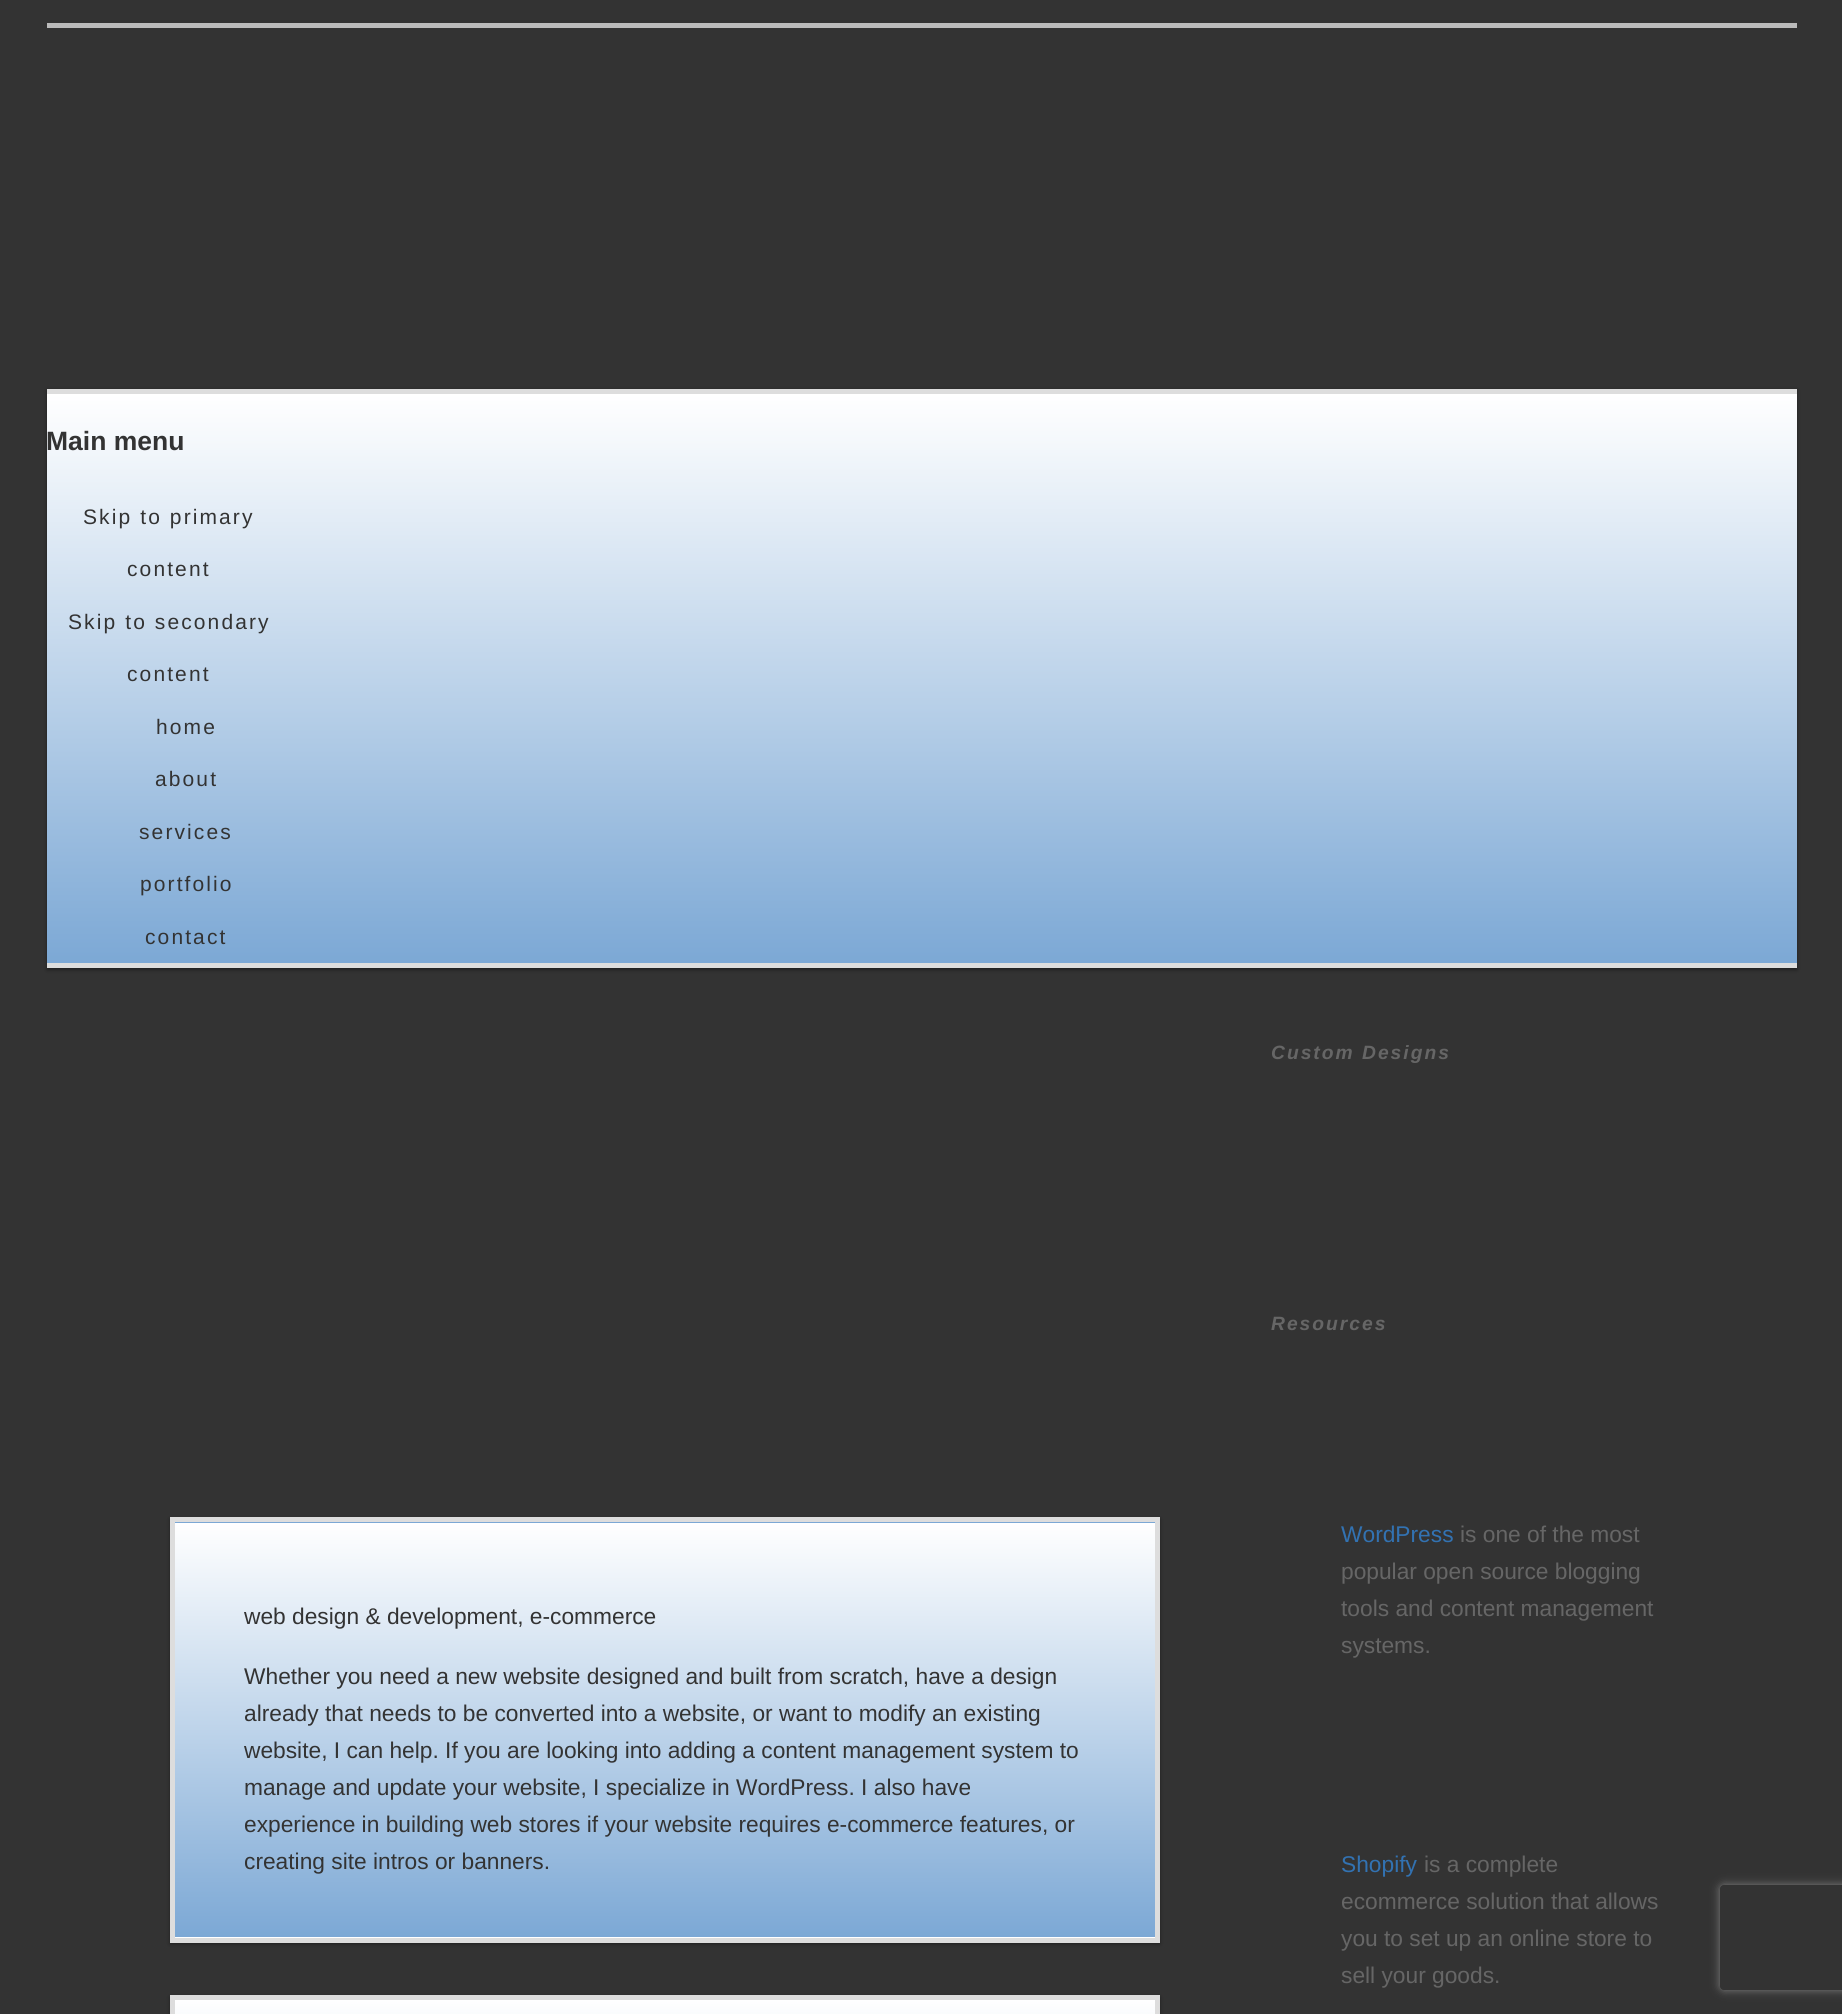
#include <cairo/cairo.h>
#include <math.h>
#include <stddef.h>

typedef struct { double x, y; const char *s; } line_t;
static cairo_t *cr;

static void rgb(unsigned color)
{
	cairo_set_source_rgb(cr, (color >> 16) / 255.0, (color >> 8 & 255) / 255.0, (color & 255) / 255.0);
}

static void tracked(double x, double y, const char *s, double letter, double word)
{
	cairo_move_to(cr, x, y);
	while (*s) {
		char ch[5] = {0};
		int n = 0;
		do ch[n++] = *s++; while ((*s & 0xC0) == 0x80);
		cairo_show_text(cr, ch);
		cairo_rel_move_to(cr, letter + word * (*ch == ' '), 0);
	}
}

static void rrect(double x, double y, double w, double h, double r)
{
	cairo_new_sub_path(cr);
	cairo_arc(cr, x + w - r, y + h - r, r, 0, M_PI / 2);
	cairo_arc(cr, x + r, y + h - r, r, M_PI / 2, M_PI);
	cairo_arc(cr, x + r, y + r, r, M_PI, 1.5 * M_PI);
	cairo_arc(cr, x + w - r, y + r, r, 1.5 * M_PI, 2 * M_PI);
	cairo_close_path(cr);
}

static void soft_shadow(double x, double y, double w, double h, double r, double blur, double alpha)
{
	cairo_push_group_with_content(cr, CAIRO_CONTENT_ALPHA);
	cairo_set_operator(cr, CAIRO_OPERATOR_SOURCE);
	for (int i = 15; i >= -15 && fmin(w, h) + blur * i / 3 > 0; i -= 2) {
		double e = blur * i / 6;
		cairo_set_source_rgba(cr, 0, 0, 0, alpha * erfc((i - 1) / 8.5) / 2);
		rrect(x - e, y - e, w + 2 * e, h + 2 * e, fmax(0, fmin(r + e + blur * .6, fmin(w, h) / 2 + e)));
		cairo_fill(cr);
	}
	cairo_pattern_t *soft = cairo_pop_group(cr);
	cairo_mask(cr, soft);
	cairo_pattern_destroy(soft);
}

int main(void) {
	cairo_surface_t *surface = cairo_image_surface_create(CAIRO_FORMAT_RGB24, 1842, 2014);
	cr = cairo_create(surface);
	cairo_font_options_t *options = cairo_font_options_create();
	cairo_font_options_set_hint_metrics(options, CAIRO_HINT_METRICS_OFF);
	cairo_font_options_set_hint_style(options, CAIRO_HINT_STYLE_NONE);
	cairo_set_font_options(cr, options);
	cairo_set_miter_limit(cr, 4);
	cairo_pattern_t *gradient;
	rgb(0x333333);
	cairo_paint(cr);
	rgb(0xbbbbbb);
	cairo_rectangle(cr, 47, 23, 1750, 5);
	cairo_fill(cr);
	rgb(0x000000);
	soft_shadow(47, 390, 1750, 580, 0, 2, 0.4);
	gradient = cairo_pattern_create_linear(922, 394, 922, 963);
	cairo_pattern_add_color_stop_rgba(gradient, 0, 1, 1, 1, 1);
	cairo_pattern_add_color_stop_rgba(gradient, 1, 0.486, 0.659, 0.835, 1);
	cairo_set_source(cr, gradient);
	cairo_pattern_destroy(gradient);
	cairo_rectangle(cr, 47, 394, 1750, 569);
	cairo_fill(cr);
	rgb(0xdddddd);
	cairo_rectangle(cr, 47, 389, 1750, 5);
	cairo_fill(cr);
	cairo_rectangle(cr, 47, 963, 1750, 5);
	cairo_fill(cr);
	rgb(0x000000);
	soft_shadow(170, 1519, 990, 425, 0, 2, 0.4);
	gradient = cairo_pattern_create_linear(665, 1108, 665, 1523);
	cairo_pattern_add_color_stop_rgba(gradient, 0, 1, 1, 1, 1);
	cairo_pattern_add_color_stop_rgba(gradient, 1, 0.486, 0.659, 0.835, 1);
	cairo_set_source(cr, gradient);
	cairo_pattern_destroy(gradient);
	cairo_rectangle(cr, 170, 1522, 990, 1);
	cairo_fill(cr);
	gradient = cairo_pattern_create_linear(665, 1523, 665, 1937);
	cairo_pattern_add_color_stop_rgba(gradient, 0, 1, 1, 1, 1);
	cairo_pattern_add_color_stop_rgba(gradient, 1, 0.486, 0.659, 0.835, 1);
	cairo_set_source(cr, gradient);
	cairo_pattern_destroy(gradient);
	cairo_rectangle(cr, 175, 1523, 980, 414);
	cairo_fill(cr);
	gradient = cairo_pattern_create_linear(665, 1937, 665, 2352);
	cairo_pattern_add_color_stop_rgba(gradient, 0, 1, 1, 1, 1);
	cairo_pattern_add_color_stop_rgba(gradient, 1, 0.486, 0.659, 0.835, 1);
	cairo_set_source(cr, gradient);
	cairo_pattern_destroy(gradient);
	cairo_rectangle(cr, 170, 1937, 990, 1);
	cairo_fill(cr);
	cairo_rectangle(cr, 172.5, 1519.5, 985, 421);
	rgb(0xdddddd);
	cairo_set_line_width(cr, 5);
	cairo_stroke(cr);
	rgb(0x000000);
	soft_shadow(170, 1997, 990, 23, 0, 2, 0.4);
	gradient = cairo_pattern_create_linear(665, 2000, 665, 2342);
	cairo_pattern_add_color_stop_rgba(gradient, 0, 1, 1, 1, 1);
	cairo_pattern_add_color_stop_rgba(gradient, 1, 0.486, 0.659, 0.835, 1);
	cairo_set_source(cr, gradient);
	cairo_pattern_destroy(gradient);
	cairo_rectangle(cr, 175, 2000, 980, 14);
	cairo_fill(cr);
	cairo_rectangle(cr, 172.5, 1997.5, 985, 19);
	rgb(0xdddddd);
	cairo_stroke(cr);
	cairo_save(cr);
	cairo_set_fill_rule(cr, CAIRO_FILL_RULE_EVEN_ODD);
	cairo_new_path(cr);
	cairo_move_to(cr, 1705, 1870);
	cairo_line_to(cr, 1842, 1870);
	cairo_line_to(cr, 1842, 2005);
	cairo_line_to(cr, 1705, 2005);
	cairo_close_path(cr);
	cairo_move_to(cr, 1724, 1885);
	cairo_line_to(cr, 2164, 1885);
	cairo_curve_to(cr, 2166, 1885, 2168, 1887, 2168, 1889);
	cairo_line_to(cr, 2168, 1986);
	cairo_curve_to(cr, 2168, 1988, 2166, 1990, 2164, 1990);
	cairo_line_to(cr, 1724, 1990);
	cairo_curve_to(cr, 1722, 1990, 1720, 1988, 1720, 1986);
	cairo_line_to(cr, 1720, 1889);
	cairo_curve_to(cr, 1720, 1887, 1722, 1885, 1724, 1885);
	cairo_close_path(cr);
	cairo_clip(cr);
	rgb(0x808080);
	soft_shadow(1720, 1885, 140, 105, 4, 4.5, 1);
	cairo_restore(cr);
	cairo_select_font_face(cr, "Liberation Sans", CAIRO_FONT_SLANT_NORMAL, CAIRO_FONT_WEIGHT_BOLD);
	cairo_set_font_size(cr, 26.5);
	rgb(0x333333);
	cairo_move_to(cr, 46, 450);
	cairo_show_text(cr, "Main menu");
	cairo_select_font_face(cr, "Liberation Sans", CAIRO_FONT_SLANT_NORMAL, CAIRO_FONT_WEIGHT_NORMAL);
	cairo_set_font_size(cr, 21);
	{
		static const line_t items[] = {
			{83, 524, "Skip to primary"},
			{127, 576, "content"},
			{68, 629, "Skip to secondary"},
			{127, 681, "content"},
			{156, 734, "home"},
			{155, 786, "about"},
			{139, 839, "services"},
			{140, 891, "portfolio"},
			{145, 944, "contact"},
		};
		for (size_t i = 0; i < sizeof items / sizeof *items; i++) {
			tracked(items[i].x, items[i].y, items[i].s, 2.1, 0);
		}
	}
	cairo_set_font_size(cr, 22.75);
	{
		static const line_t items[] = {
			{244, 1624, "web design & development, e-commerce"},
			{244, 1684, "Whether you need a new website designed and built from scratch, have a design"},
			{244, 1721, "already that needs to be converted into a website, or want to modify an existing"},
			{244, 1758, "website, I can help. If you are looking into adding a content management system to"},
			{244, 1795, "manage and update your website, I specialize in WordPress. I also have"},
			{244, 1832, "experience in building web stores if your website requires e-commerce features, or"},
			{244, 1869, "creating site intros or banners."},
		};
		for (size_t i = 0; i < sizeof items / sizeof *items; i++) {
			cairo_move_to(cr, items[i].x, items[i].y);
			cairo_show_text(cr, items[i].s);
		}
	}
	cairo_select_font_face(cr, "Liberation Sans", CAIRO_FONT_SLANT_ITALIC, CAIRO_FONT_WEIGHT_BOLD);
	cairo_set_font_size(cr, 19.25);
	rgb(0x666666);
	tracked(1271, 1059, "Custom Designs", 2, 0);
	tracked(1271, 1330, "Resources", 2, 0);
	cairo_select_font_face(cr, "Liberation Sans", CAIRO_FONT_SLANT_NORMAL, CAIRO_FONT_WEIGHT_NORMAL);
	cairo_set_font_size(cr, 22.75);
	rgb(0x3272b2);
	cairo_move_to(cr, 1341, 1542);
	cairo_show_text(cr, "WordPress");
	rgb(0x666666);
	{
		static const line_t items[] = {
			{1460, 1542, "is one of the most"},
			{1341, 1579, "popular open source blogging"},
			{1341, 1616, "tools and content management"},
			{1341, 1653, "systems."},
		};
		for (size_t i = 0; i < sizeof items / sizeof *items; i++) {
			cairo_move_to(cr, items[i].x, items[i].y);
			cairo_show_text(cr, items[i].s);
		}
	}
	rgb(0x3272b2);
	cairo_move_to(cr, 1341, 1872);
	cairo_show_text(cr, "Shopify");
	rgb(0x666666);
	{
		static const line_t items[] = {
			{1424, 1872, "is a complete"},
			{1341, 1909, "ecommerce solution that allows"},
			{1341, 1946, "you to set up an online store to"},
			{1341, 1983, "sell your goods."},
		};
		for (size_t i = 0; i < sizeof items / sizeof *items; i++) {
			cairo_move_to(cr, items[i].x, items[i].y);
			cairo_show_text(cr, items[i].s);
		}
	}
	cairo_surface_write_to_png(surface, "page.png");
	cairo_font_options_destroy(options);
	cairo_destroy(cr);
	cairo_surface_destroy(surface);
	return 0;
}
